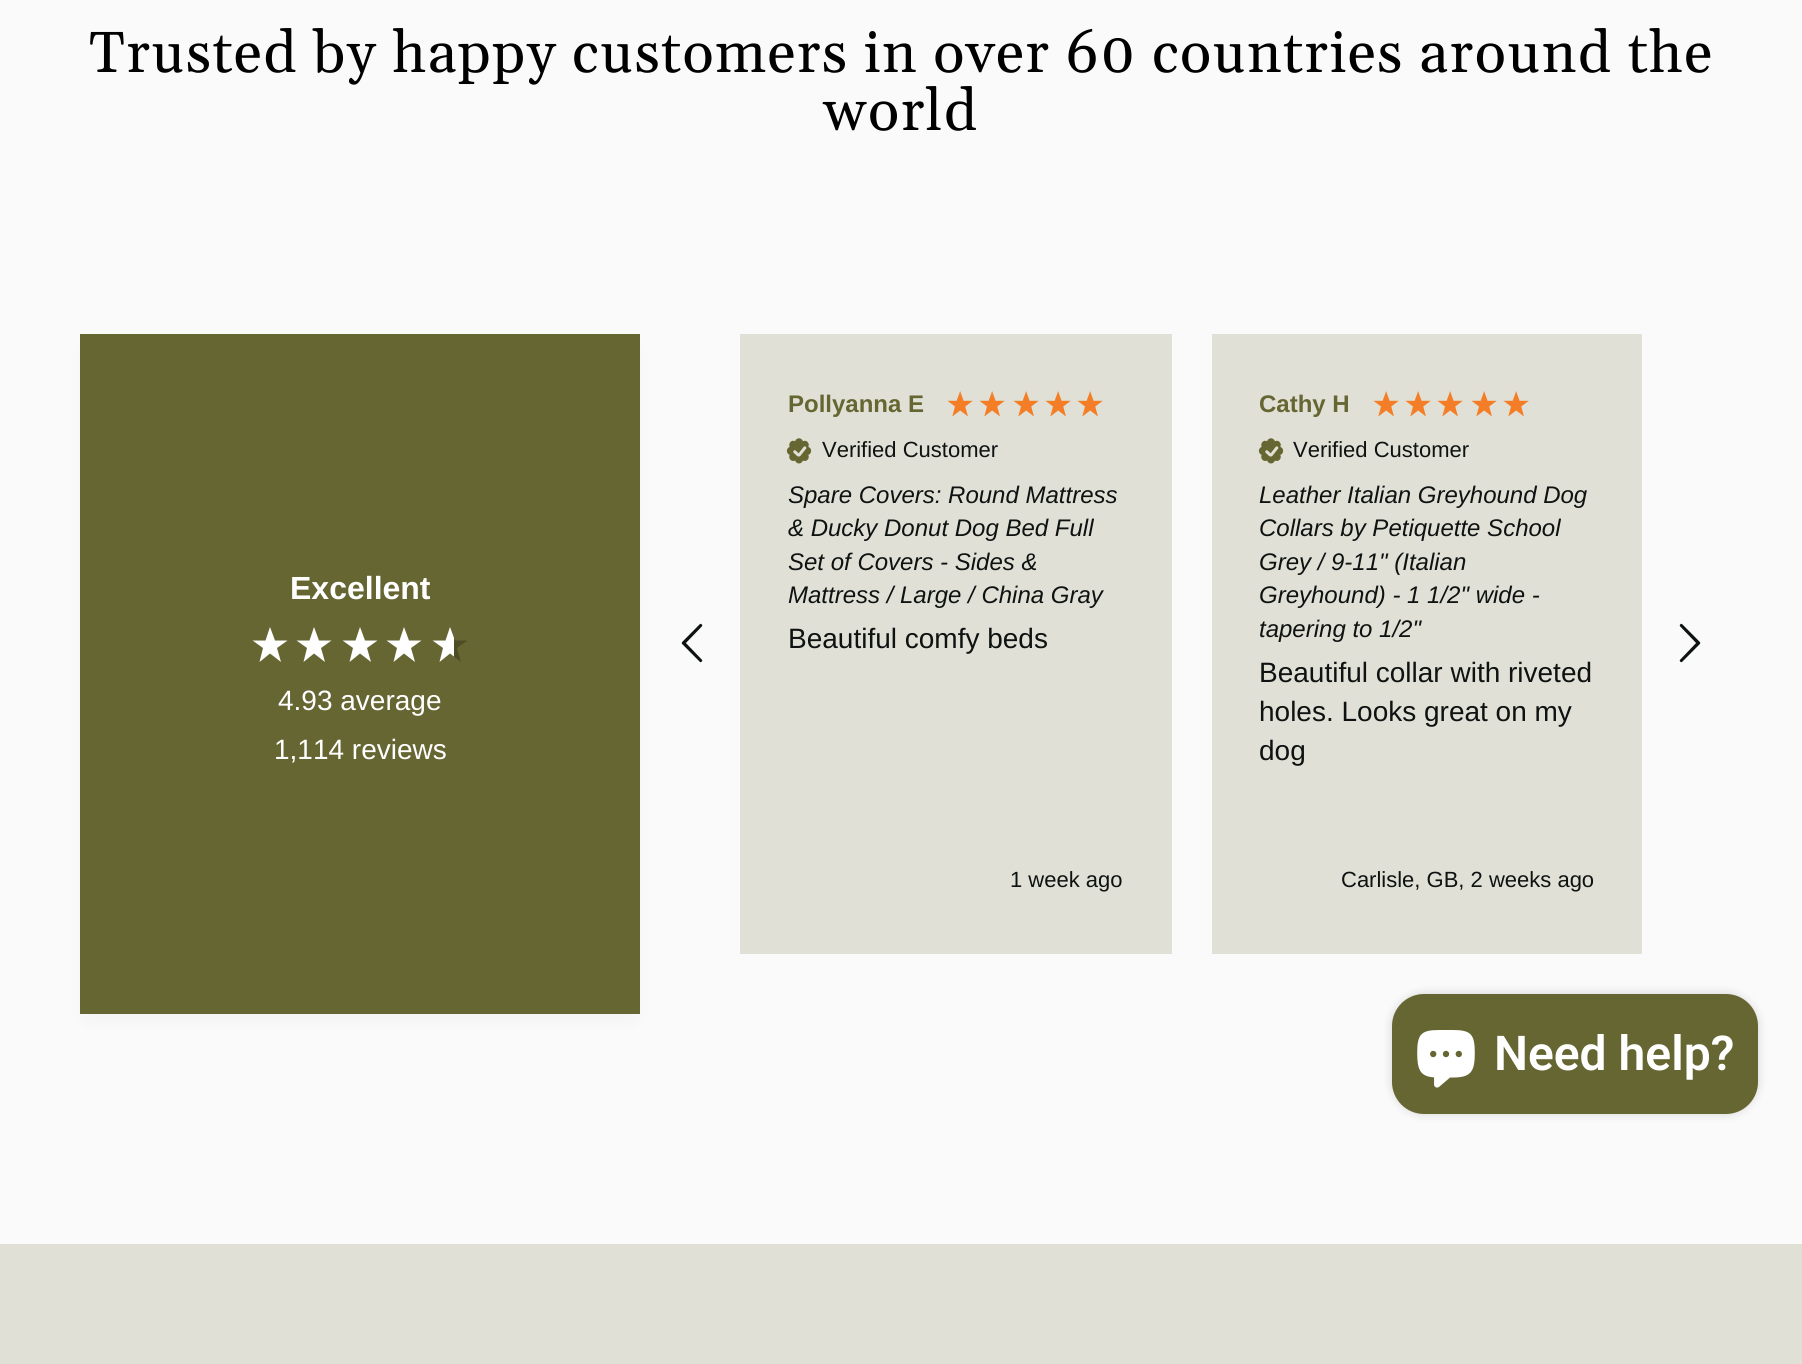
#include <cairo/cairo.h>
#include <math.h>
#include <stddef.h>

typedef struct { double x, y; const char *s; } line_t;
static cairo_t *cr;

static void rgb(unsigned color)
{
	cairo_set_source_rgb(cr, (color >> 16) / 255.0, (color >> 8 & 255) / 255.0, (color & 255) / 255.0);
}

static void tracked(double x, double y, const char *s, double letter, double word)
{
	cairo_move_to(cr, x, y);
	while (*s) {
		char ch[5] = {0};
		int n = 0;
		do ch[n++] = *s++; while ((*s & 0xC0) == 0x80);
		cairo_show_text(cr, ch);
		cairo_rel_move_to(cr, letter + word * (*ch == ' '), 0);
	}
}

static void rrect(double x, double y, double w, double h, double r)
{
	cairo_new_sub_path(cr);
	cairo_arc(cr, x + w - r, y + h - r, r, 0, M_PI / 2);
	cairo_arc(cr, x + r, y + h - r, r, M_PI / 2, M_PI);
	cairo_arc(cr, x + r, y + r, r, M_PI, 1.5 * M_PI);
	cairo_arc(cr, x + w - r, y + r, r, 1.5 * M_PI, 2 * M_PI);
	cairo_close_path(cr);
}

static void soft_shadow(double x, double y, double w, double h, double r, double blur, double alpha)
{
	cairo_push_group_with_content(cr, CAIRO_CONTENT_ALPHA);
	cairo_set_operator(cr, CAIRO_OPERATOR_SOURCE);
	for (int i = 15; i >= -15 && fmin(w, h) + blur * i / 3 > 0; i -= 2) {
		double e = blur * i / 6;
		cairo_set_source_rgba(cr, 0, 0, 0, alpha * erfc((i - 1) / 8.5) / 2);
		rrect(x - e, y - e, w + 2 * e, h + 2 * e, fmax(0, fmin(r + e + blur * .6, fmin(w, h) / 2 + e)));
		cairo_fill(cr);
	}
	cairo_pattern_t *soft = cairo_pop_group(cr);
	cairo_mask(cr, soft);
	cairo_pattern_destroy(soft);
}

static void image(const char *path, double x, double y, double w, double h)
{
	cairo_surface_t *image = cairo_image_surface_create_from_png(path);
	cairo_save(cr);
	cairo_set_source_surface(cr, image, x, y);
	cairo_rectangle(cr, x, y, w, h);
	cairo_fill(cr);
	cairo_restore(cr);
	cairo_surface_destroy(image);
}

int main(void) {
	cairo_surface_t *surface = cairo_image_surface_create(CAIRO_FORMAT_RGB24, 1802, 1364);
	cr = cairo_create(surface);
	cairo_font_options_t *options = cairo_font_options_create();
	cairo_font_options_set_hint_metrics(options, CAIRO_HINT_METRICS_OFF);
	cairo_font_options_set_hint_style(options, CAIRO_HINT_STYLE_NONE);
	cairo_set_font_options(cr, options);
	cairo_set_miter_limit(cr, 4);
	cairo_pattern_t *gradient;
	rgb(0xfafafa);
	cairo_paint(cr);
	rgb(0x000000);
	soft_shadow(88, 352, 544, 664, 0, 10, 0.05);
	rgb(0x666633);
	cairo_rectangle(cr, 80, 334, 560, 680);
	cairo_fill(cr);
	rgb(0xffffff);
	cairo_new_path(cr);
	cairo_move_to(cr, 270, 627);
	cairo_line_to(cr, 265.5, 640.5);
	cairo_line_to(cr, 252.5, 640.5);
	cairo_line_to(cr, 263, 648);
	cairo_line_to(cr, 259.5, 662);
	cairo_line_to(cr, 270, 653.5);
	cairo_line_to(cr, 281, 662);
	cairo_line_to(cr, 277, 648);
	cairo_line_to(cr, 287.5, 640.5);
	cairo_line_to(cr, 275, 640.5);
	cairo_close_path(cr);
	cairo_fill(cr);
	cairo_new_path(cr);
	cairo_move_to(cr, 314, 627);
	cairo_line_to(cr, 309.5, 640.5);
	cairo_line_to(cr, 296.5, 640.5);
	cairo_line_to(cr, 307, 648);
	cairo_line_to(cr, 303.5, 662);
	cairo_line_to(cr, 314, 653.5);
	cairo_line_to(cr, 325, 662);
	cairo_line_to(cr, 321, 648);
	cairo_line_to(cr, 331.5, 640.5);
	cairo_line_to(cr, 319, 640.5);
	cairo_close_path(cr);
	cairo_fill(cr);
	cairo_new_path(cr);
	cairo_move_to(cr, 360, 627);
	cairo_line_to(cr, 355.5, 640.5);
	cairo_line_to(cr, 342.5, 640.5);
	cairo_line_to(cr, 353, 648);
	cairo_line_to(cr, 349.5, 662);
	cairo_line_to(cr, 360, 653.5);
	cairo_line_to(cr, 371, 662);
	cairo_line_to(cr, 367, 648);
	cairo_line_to(cr, 377.5, 640.5);
	cairo_line_to(cr, 365, 640.5);
	cairo_close_path(cr);
	cairo_fill(cr);
	cairo_new_path(cr);
	cairo_move_to(cr, 404, 627);
	cairo_line_to(cr, 399.5, 640.5);
	cairo_line_to(cr, 386.5, 640.5);
	cairo_line_to(cr, 397, 648);
	cairo_line_to(cr, 393.5, 662);
	cairo_line_to(cr, 404, 653.5);
	cairo_line_to(cr, 415, 662);
	cairo_line_to(cr, 411, 648);
	cairo_line_to(cr, 421.5, 640.5);
	cairo_line_to(cr, 409, 640.5);
	cairo_close_path(cr);
	cairo_fill(cr);
	gradient = cairo_pattern_create_linear(427, 644, 472, 644);
	cairo_pattern_add_color_stop_rgba(gradient, 0.6, 1, 1, 1, 1);
	cairo_pattern_add_color_stop_rgba(gradient, 0.6, 0.302, 0.302, 0.149, 1);
	cairo_set_source(cr, gradient);
	cairo_pattern_destroy(gradient);
	cairo_new_path(cr);
	cairo_move_to(cr, 450, 627);
	cairo_line_to(cr, 445.5, 640.5);
	cairo_line_to(cr, 432.5, 640.5);
	cairo_line_to(cr, 443, 648);
	cairo_line_to(cr, 439.5, 662);
	cairo_line_to(cr, 450, 653.5);
	cairo_line_to(cr, 461, 662);
	cairo_line_to(cr, 457, 648);
	cairo_line_to(cr, 467.5, 640.5);
	cairo_line_to(cr, 455, 640.5);
	cairo_close_path(cr);
	cairo_fill(cr);
	image("img/1.png", 681, 623, 22, 40);
	rgb(0xe0e0d6);
	cairo_rectangle(cr, 740, 334, 432, 620);
	cairo_fill(cr);
	image("img/2.png", 947, 391, 26, 26);
	image("img/2.png", 979, 391, 26, 26);
	image("img/2.png", 1013, 391, 26, 26);
	image("img/2.png", 1045, 391, 26, 26);
	image("img/2.png", 1077, 391, 26, 26);
	image("img/3.png", 786, 438, 26, 26);
	cairo_rectangle(cr, 1212, 334, 430, 620);
	cairo_fill(cr);
	image("img/2.png", 1373, 391, 26, 26);
	image("img/2.png", 1405, 391, 26, 26);
	image("img/2.png", 1437, 391, 26, 26);
	image("img/2.png", 1471, 391, 26, 26);
	image("img/2.png", 1503, 391, 26, 26);
	image("img/3.png", 1258, 438, 26, 26);
	image("img/4.png", 1679, 623, 22, 40);
	cairo_rectangle(cr, 0, 1244, 1802, 120);
	cairo_fill(cr);
	rgb(0x000000);
	soft_shadow(1392, 994, 366, 120, 32, 5, 0.15);
	rgb(0x666633);
	rrect(1392, 994, 366, 120, 32);
	cairo_fill(cr);
	image("img/5.png", 1417, 1030, 58, 58);
	cairo_select_font_face(cr, "Gelasio", CAIRO_FONT_SLANT_NORMAL, CAIRO_FONT_WEIGHT_NORMAL);
	cairo_set_font_size(cr, 57.8);
	rgb(0x000000);
	tracked(89, 72, "Trusted by happy customers in over 60 countries around the", 1.45, 0);
	tracked(824, 130, "world", 1.45, 0);
	cairo_select_font_face(cr, "Liberation Sans", CAIRO_FONT_SLANT_NORMAL, CAIRO_FONT_WEIGHT_BOLD);
	cairo_set_font_size(cr, 32);
	rgb(0xffffff);
	cairo_move_to(cr, 290, 599);
	cairo_show_text(cr, "Excellent");
	cairo_select_font_face(cr, "Liberation Sans", CAIRO_FONT_SLANT_NORMAL, CAIRO_FONT_WEIGHT_NORMAL);
	cairo_set_font_size(cr, 28);
	cairo_move_to(cr, 278, 710);
	cairo_show_text(cr, "4.93 average");
	cairo_move_to(cr, 274, 759);
	cairo_show_text(cr, "1,114 reviews");
	cairo_select_font_face(cr, "Liberation Sans", CAIRO_FONT_SLANT_NORMAL, CAIRO_FONT_WEIGHT_BOLD);
	cairo_set_font_size(cr, 24);
	rgb(0x666633);
	cairo_move_to(cr, 788, 412);
	cairo_show_text(cr, "Pollyanna E");
	cairo_select_font_face(cr, "Liberation Sans", CAIRO_FONT_SLANT_NORMAL, CAIRO_FONT_WEIGHT_NORMAL);
	cairo_set_font_size(cr, 22);
	rgb(0x0e1311);
	cairo_move_to(cr, 822, 457);
	cairo_show_text(cr, "Verified Customer");
	cairo_select_font_face(cr, "Liberation Sans", CAIRO_FONT_SLANT_ITALIC, CAIRO_FONT_WEIGHT_NORMAL);
	cairo_set_font_size(cr, 24);
	{
		static const line_t items[] = {
			{788, 503, "Spare Covers: Round Mattress"},
			{788, 536, "& Ducky Donut Dog Bed Full"},
			{788, 570, "Set of Covers - Sides &"},
			{788, 603, "Mattress / Large / China Gray"},
		};
		for (size_t i = 0; i < sizeof items / sizeof *items; i++) {
			cairo_move_to(cr, items[i].x, items[i].y);
			cairo_show_text(cr, items[i].s);
		}
	}
	cairo_select_font_face(cr, "Liberation Sans", CAIRO_FONT_SLANT_NORMAL, CAIRO_FONT_WEIGHT_NORMAL);
	cairo_set_font_size(cr, 28);
	cairo_move_to(cr, 788, 648);
	cairo_show_text(cr, "Beautiful comfy beds");
	cairo_set_font_size(cr, 22);
	cairo_move_to(cr, 1010, 887);
	cairo_show_text(cr, "1 week ago");
	cairo_select_font_face(cr, "Liberation Sans", CAIRO_FONT_SLANT_NORMAL, CAIRO_FONT_WEIGHT_BOLD);
	cairo_set_font_size(cr, 24);
	rgb(0x666633);
	cairo_move_to(cr, 1259, 412);
	cairo_show_text(cr, "Cathy H");
	cairo_select_font_face(cr, "Liberation Sans", CAIRO_FONT_SLANT_NORMAL, CAIRO_FONT_WEIGHT_NORMAL);
	cairo_set_font_size(cr, 22);
	rgb(0x0e1311);
	cairo_move_to(cr, 1293, 457);
	cairo_show_text(cr, "Verified Customer");
	cairo_select_font_face(cr, "Liberation Sans", CAIRO_FONT_SLANT_ITALIC, CAIRO_FONT_WEIGHT_NORMAL);
	cairo_set_font_size(cr, 24);
	{
		static const line_t items[] = {
			{1259, 503, "Leather Italian Greyhound Dog"},
			{1259, 536, "Collars by Petiquette School"},
			{1259, 570, "Grey / 9-11\" (Italian"},
			{1259, 603, "Greyhound) - 1 1/2\" wide -"},
			{1259, 637, "tapering to 1/2\""},
		};
		for (size_t i = 0; i < sizeof items / sizeof *items; i++) {
			cairo_move_to(cr, items[i].x, items[i].y);
			cairo_show_text(cr, items[i].s);
		}
	}
	cairo_select_font_face(cr, "Liberation Sans", CAIRO_FONT_SLANT_NORMAL, CAIRO_FONT_WEIGHT_NORMAL);
	cairo_set_font_size(cr, 28);
	{
		static const line_t items[] = {
			{1259, 682, "Beautiful collar with riveted"},
			{1259, 721, "holes. Looks great on my"},
			{1259, 760, "dog"},
		};
		for (size_t i = 0; i < sizeof items / sizeof *items; i++) {
			cairo_move_to(cr, items[i].x, items[i].y);
			cairo_show_text(cr, items[i].s);
		}
	}
	cairo_set_font_size(cr, 22);
	cairo_move_to(cr, 1341, 887);
	cairo_show_text(cr, "Carlisle, GB, 2 weeks ago");
	cairo_select_font_face(cr, "Roboto SemiBold", CAIRO_FONT_SLANT_NORMAL, CAIRO_FONT_WEIGHT_NORMAL);
	cairo_set_font_size(cr, 48);
	rgb(0xffffff);
	cairo_move_to(cr, 1494, 1070);
	cairo_show_text(cr, "Need help?");
	cairo_surface_write_to_png(surface, "page.png");
	cairo_font_options_destroy(options);
	cairo_destroy(cr);
	cairo_surface_destroy(surface);
	return 0;
}
